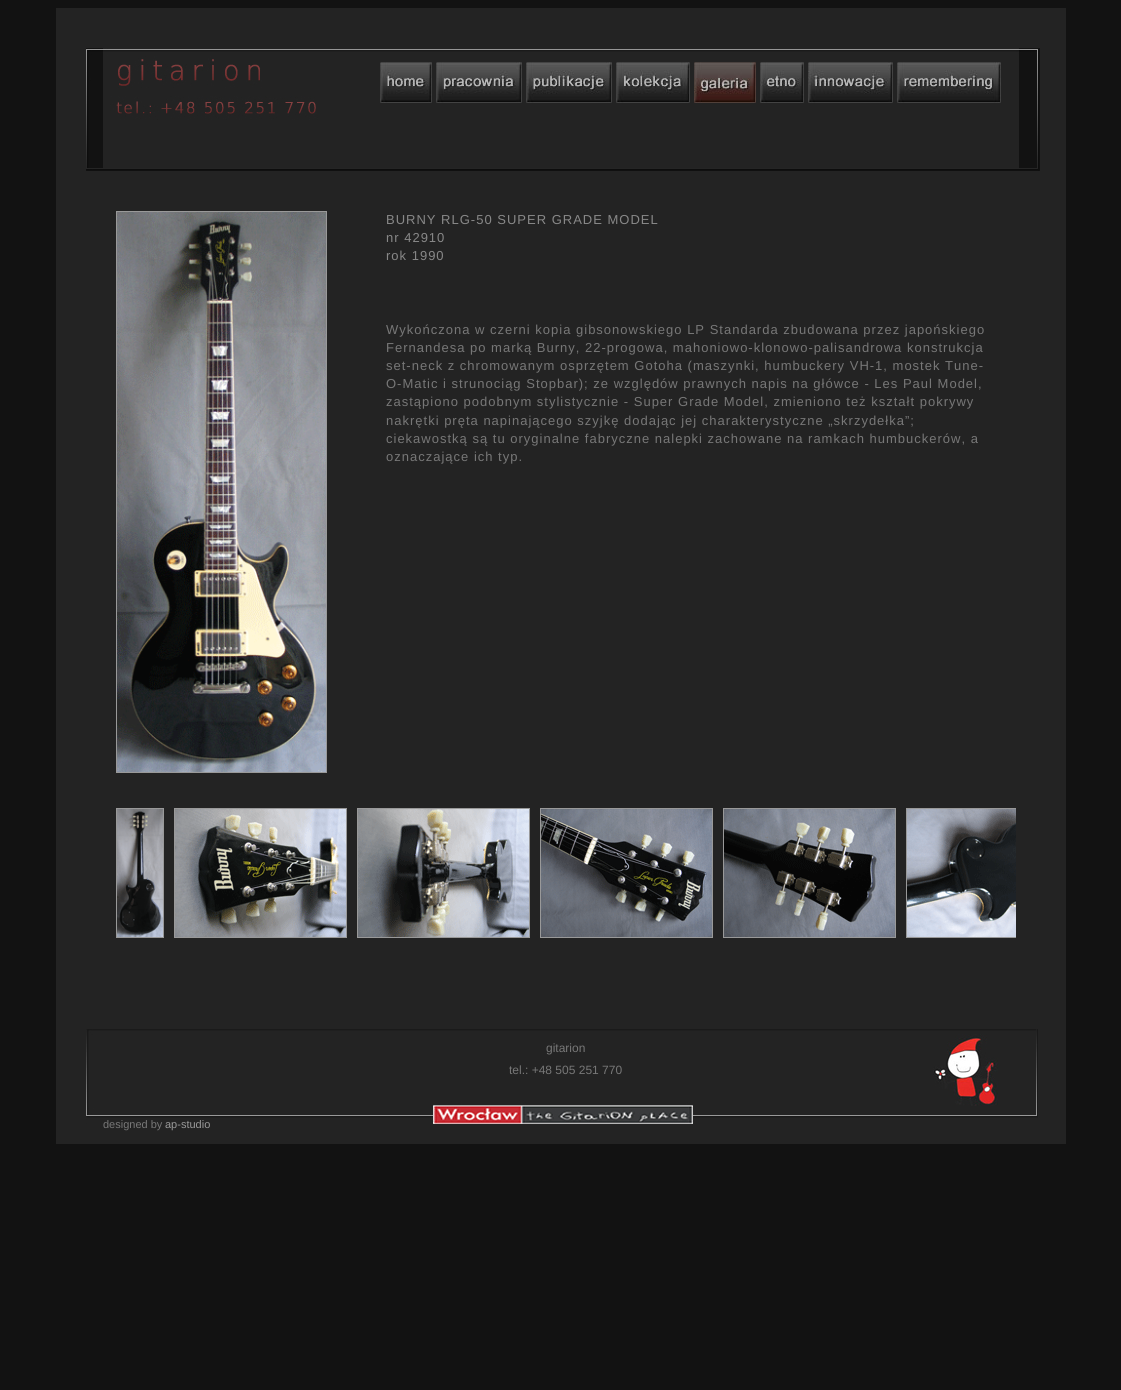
#include <cairo/cairo.h>
#include <math.h>
#include <stddef.h>

typedef struct { double x, y; const char *s; } line_t;
static cairo_t *cr;

static void rgb(unsigned color)
{
	cairo_set_source_rgb(cr, (color >> 16) / 255.0, (color >> 8 & 255) / 255.0, (color & 255) / 255.0);
}

static void tracked(double x, double y, const char *s, double letter, double word)
{
	cairo_move_to(cr, x, y);
	while (*s) {
		char ch[5] = {0};
		int n = 0;
		do ch[n++] = *s++; while ((*s & 0xC0) == 0x80);
		cairo_show_text(cr, ch);
		cairo_rel_move_to(cr, letter + word * (*ch == ' '), 0);
	}
}

static void image(const char *path, double x, double y, double w, double h)
{
	cairo_surface_t *image = cairo_image_surface_create_from_png(path);
	cairo_save(cr);
	cairo_set_source_surface(cr, image, x, y);
	cairo_rectangle(cr, x, y, w, h);
	cairo_fill(cr);
	cairo_restore(cr);
	cairo_surface_destroy(image);
}

int main(void) {
	cairo_surface_t *surface = cairo_image_surface_create(CAIRO_FORMAT_RGB24, 1121, 1390);
	cr = cairo_create(surface);
	cairo_font_options_t *options = cairo_font_options_create();
	cairo_font_options_set_hint_metrics(options, CAIRO_HINT_METRICS_OFF);
	cairo_font_options_set_hint_style(options, CAIRO_HINT_STYLE_NONE);
	cairo_set_font_options(cr, options);
	cairo_set_miter_limit(cr, 4);
	rgb(0x121212);
	cairo_paint(cr);
	rgb(0x232323);
	cairo_rectangle(cr, 56, 8, 1010, 1136);
	cairo_fill(cr);
	image("img/1.png", 86, 48, 954, 123);
	image("img/2.png", 380, 62, 52, 41);
	image("img/3.png", 436, 62, 86, 41);
	image("img/4.png", 526, 62, 86, 41);
	image("img/5.png", 616, 62, 74, 41);
	image("img/6.png", 694, 62, 62, 41);
	image("img/7.png", 760, 62, 44, 41);
	image("img/8.png", 808, 62, 85, 41);
	image("img/9.png", 897, 62, 104, 41);
	cairo_rectangle(cr, 116.5, 211.5, 210, 561);
	rgb(0x999999);
	cairo_set_line_width(cr, 1);
	cairo_stroke(cr);
	image("img/10.png", 117, 212, 209, 560);
	cairo_rectangle(cr, 116.5, 808.5, 47, 129);
	cairo_stroke(cr);
	image("img/11.png", 117, 809, 46, 128);
	cairo_rectangle(cr, 174.5, 808.5, 172, 129);
	cairo_stroke(cr);
	image("img/12.png", 175, 809, 171, 128);
	cairo_rectangle(cr, 357.5, 808.5, 172, 129);
	cairo_stroke(cr);
	image("img/13.png", 358, 809, 171, 128);
	cairo_rectangle(cr, 540.5, 808.5, 172, 129);
	cairo_stroke(cr);
	image("img/14.png", 541, 809, 171, 128);
	cairo_rectangle(cr, 723.5, 808.5, 172, 129);
	cairo_stroke(cr);
	image("img/15.png", 724, 809, 171, 128);
	cairo_save(cr);
	cairo_rectangle(cr, 86, 773, 930, 195);
	cairo_clip(cr);
	cairo_rectangle(cr, 906.5, 808.5, 172, 129);
	cairo_stroke(cr);
	cairo_restore(cr);
	image("img/16.png", 907, 809, 109, 128);
	image("img/17.png", 86, 1029, 952, 95);
	image("img/18.png", 933, 1034, 65, 72);
	cairo_select_font_face(cr, "Liberation Sans", CAIRO_FONT_SLANT_NORMAL, CAIRO_FONT_WEIGHT_NORMAL);
	cairo_set_font_size(cr, 13);
	rgb(0x888888);
	{
		static const line_t items[] = {
			{386, 224, "BURNY RLG-50 SUPER GRADE MODEL"},
			{386, 242, "nr 42910"},
			{386, 260, "rok 1990"},
		};
		for (size_t i = 0; i < sizeof items / sizeof *items; i++) {
			tracked(items[i].x, items[i].y, items[i].s, 1, 0);
		}
	}
	rgb(0x777777);
	{
		static const line_t items[] = {
			{386, 334, "Wykończona w czerni kopia gibsonowskiego LP Standarda zbudowana przez japońskiego"},
			{386, 352, "Fernandesa po marką Burny, 22-progowa, mahoniowo-klonowo-palisandrowa konstrukcja"},
			{386, 370, "set-neck z chromowanym osprzętem Gotoha (maszynki, humbuckery VH-1, mostek Tune-"},
			{386, 388, "O-Matic i strunociąg Stopbar); ze względów prawnych napis na główce - Les Paul Model,"},
			{386, 406, "zastąpiono podobnym stylistycznie - Super Grade Model, zmieniono też kształt pokrywy"},
			{386, 425, "nakrętki pręta napinającego szyjkę dodając jej charakterystyczne „skrzydełka”;"},
			{386, 443, "ciekawostką są tu oryginalne fabryczne nalepki zachowane na ramkach humbuckerów, a"},
			{386, 461, "oznaczające ich typ."},
		};
		for (size_t i = 0; i < sizeof items / sizeof *items; i++) {
			tracked(items[i].x, items[i].y, items[i].s, 1, 0);
		}
	}
	cairo_set_font_size(cr, 12);
	cairo_move_to(cr, 546, 1052);
	cairo_show_text(cr, "gitarion");
	cairo_move_to(cr, 509, 1074);
	cairo_show_text(cr, "tel.: +48 505 251 770");
	cairo_set_font_size(cr, 11);
	cairo_move_to(cr, 103, 1128);
	cairo_show_text(cr, "designed by");
	rgb(0x999999);
	cairo_move_to(cr, 165, 1128);
	cairo_show_text(cr, "ap-studio");
	cairo_surface_write_to_png(surface, "page.png");
	cairo_font_options_destroy(options);
	cairo_destroy(cr);
	cairo_surface_destroy(surface);
	return 0;
}
